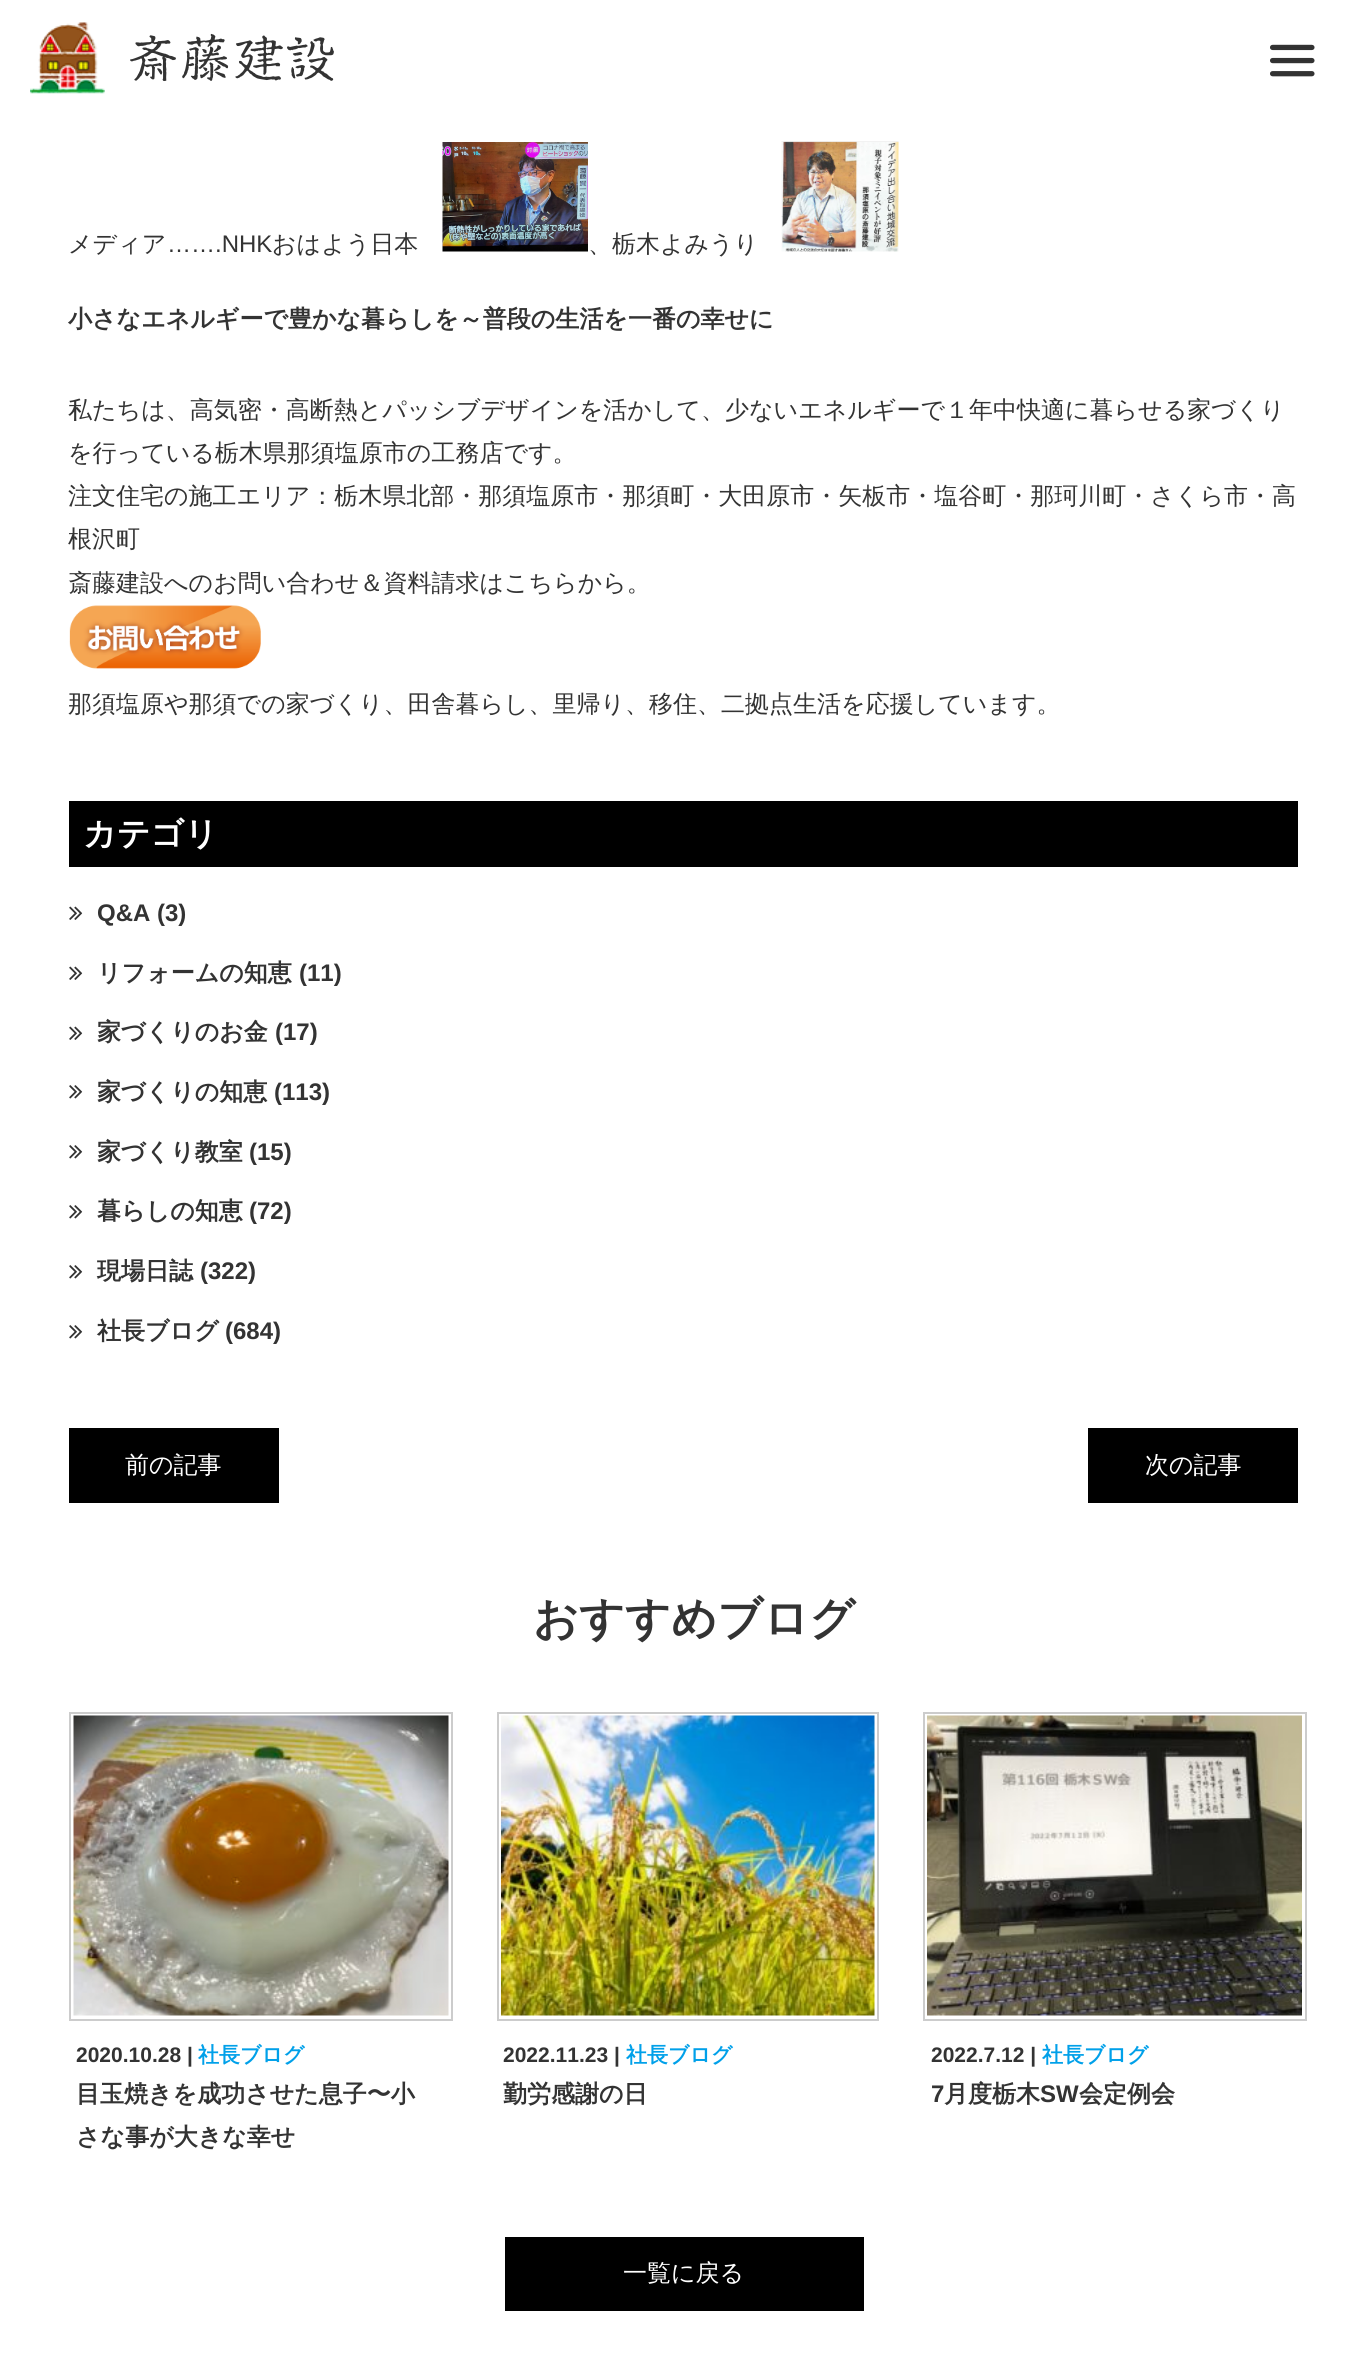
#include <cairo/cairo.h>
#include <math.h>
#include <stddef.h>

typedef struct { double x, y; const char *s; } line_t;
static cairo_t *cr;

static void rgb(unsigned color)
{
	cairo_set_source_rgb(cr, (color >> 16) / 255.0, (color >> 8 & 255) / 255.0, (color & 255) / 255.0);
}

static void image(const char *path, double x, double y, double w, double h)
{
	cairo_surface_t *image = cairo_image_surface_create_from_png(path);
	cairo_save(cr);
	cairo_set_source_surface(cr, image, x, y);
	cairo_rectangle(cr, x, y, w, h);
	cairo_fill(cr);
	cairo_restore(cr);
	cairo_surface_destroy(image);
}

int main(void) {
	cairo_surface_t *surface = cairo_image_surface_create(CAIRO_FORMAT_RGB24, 1366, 2376);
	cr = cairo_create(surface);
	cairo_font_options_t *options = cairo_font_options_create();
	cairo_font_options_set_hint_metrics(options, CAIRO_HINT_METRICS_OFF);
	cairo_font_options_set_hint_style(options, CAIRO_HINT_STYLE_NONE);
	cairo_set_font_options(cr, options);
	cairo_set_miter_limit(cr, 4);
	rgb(0xffffff);
	cairo_paint(cr);
	image("img/1.png", 30, 22, 75, 72);
	image("img/2.png", 1270, 44, 45, 33);
	image("img/3.png", 442, 142, 146, 110);
	image("img/4.png", 781, 141, 118, 111);
	image("img/5.png", 69, 605, 192, 64);
	rgb(0x000000);
	cairo_rectangle(cr, 69, 801, 1229, 66);
	cairo_fill(cr);
	image("img/6.png", 69, 906, 14, 14);
	image("img/6.png", 69, 966, 14, 14);
	image("img/6.png", 69, 1026, 14, 14);
	image("img/7.png", 69, 1085, 14, 14);
	image("img/7.png", 69, 1145, 14, 14);
	image("img/7.png", 69, 1205, 14, 14);
	image("img/7.png", 69, 1265, 14, 14);
	image("img/7.png", 69, 1325, 14, 14);
	cairo_rectangle(cr, 69, 1428, 210, 75);
	cairo_fill(cr);
	cairo_rectangle(cr, 1088, 1428, 210, 75);
	cairo_fill(cr);
	cairo_rectangle(cr, 70, 1713, 382, 307);
	rgb(0xcccccc);
	cairo_stroke(cr);
	image("img/8.png", 73, 1715, 376, 301);
	cairo_rectangle(cr, 498, 1713, 380, 307);
	cairo_stroke(cr);
	image("img/9.png", 501, 1715, 374, 301);
	cairo_rectangle(cr, 924, 1713, 382, 307);
	cairo_stroke(cr);
	image("img/10.png", 927, 1715, 375, 301);
	rgb(0x000000);
	cairo_rectangle(cr, 505, 2237, 359, 74);
	cairo_fill(cr);
	cairo_select_font_face(cr, "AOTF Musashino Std", CAIRO_FONT_SLANT_NORMAL, CAIRO_FONT_WEIGHT_NORMAL);
	cairo_set_font_size(cr, 52.5);
	rgb(0x333333);
	cairo_move_to(cr, 127, 78);
	cairo_show_text(cr, "斎藤建設");
	cairo_select_font_face(cr, "WenQuanYi Zen Hei Medium", CAIRO_FONT_SLANT_NORMAL, CAIRO_FONT_WEIGHT_NORMAL);
	cairo_set_font_size(cr, 24);
	cairo_move_to(cr, 68, 252);
	cairo_show_text(cr, "メディア");
	cairo_select_font_face(cr, "Liberation Sans", CAIRO_FONT_SLANT_NORMAL, CAIRO_FONT_WEIGHT_NORMAL);
	cairo_move_to(cr, 167, 252);
	cairo_show_text(cr, "…….NHK");
	cairo_select_font_face(cr, "WenQuanYi Zen Hei Medium", CAIRO_FONT_SLANT_NORMAL, CAIRO_FONT_WEIGHT_NORMAL);
	cairo_move_to(cr, 272, 252);
	cairo_show_text(cr, "おはよう日本");
	cairo_move_to(cr, 588, 252);
	cairo_show_text(cr, "、栃木よみうり");
	cairo_select_font_face(cr, "WenQuanYi Zen Hei", CAIRO_FONT_SLANT_NORMAL, CAIRO_FONT_WEIGHT_BOLD);
	cairo_move_to(cr, 68, 327);
	cairo_show_text(cr, "小さなエネルギーで豊かな暮らしを～普段の生活を一番の幸せに");
	cairo_select_font_face(cr, "WenQuanYi Zen Hei Medium", CAIRO_FONT_SLANT_NORMAL, CAIRO_FONT_WEIGHT_NORMAL);
	{
		static const line_t items[] = {
			{68, 418, "私たちは、高気密・高断熱とパッシブデザインを活かして、少ないエネルギーで１年中快適に暮らせる家づくり"},
			{68, 461, "を行っている栃木県那須塩原市の工務店です。"},
			{68, 504, "注文住宅の施工エリア：栃木県北部・那須塩原市・那須町・大田原市・矢板市・塩谷町・那珂川町・さくら市・高"},
			{68, 547, "根沢町"},
			{68, 591, "斎藤建設へのお問い合わせ＆資料請求はこちらから。"},
			{68, 712, "那須塩原や那須での家づくり、田舎暮らし、里帰り、移住、二拠点生活を応援しています。"},
		};
		for (size_t i = 0; i < sizeof items / sizeof *items; i++) {
			cairo_move_to(cr, items[i].x, items[i].y);
			cairo_show_text(cr, items[i].s);
		}
	}
	cairo_select_font_face(cr, "WenQuanYi Zen Hei", CAIRO_FONT_SLANT_NORMAL, CAIRO_FONT_WEIGHT_BOLD);
	cairo_set_font_size(cr, 33);
	rgb(0xffffff);
	cairo_move_to(cr, 83, 845);
	cairo_show_text(cr, "カテゴリ");
	cairo_select_font_face(cr, "Liberation Sans", CAIRO_FONT_SLANT_NORMAL, CAIRO_FONT_WEIGHT_BOLD);
	cairo_set_font_size(cr, 24);
	rgb(0x333333);
	cairo_move_to(cr, 97, 921);
	cairo_show_text(cr, "Q&A (3)");
	cairo_select_font_face(cr, "WenQuanYi Zen Hei", CAIRO_FONT_SLANT_NORMAL, CAIRO_FONT_WEIGHT_BOLD);
	cairo_move_to(cr, 97, 981);
	cairo_show_text(cr, "リフォームの知恵");
	cairo_select_font_face(cr, "Liberation Sans", CAIRO_FONT_SLANT_NORMAL, CAIRO_FONT_WEIGHT_BOLD);
	cairo_move_to(cr, 299, 981);
	cairo_show_text(cr, "(11)");
	cairo_select_font_face(cr, "WenQuanYi Zen Hei", CAIRO_FONT_SLANT_NORMAL, CAIRO_FONT_WEIGHT_BOLD);
	cairo_move_to(cr, 97, 1040);
	cairo_show_text(cr, "家づくりのお金");
	cairo_select_font_face(cr, "Liberation Sans", CAIRO_FONT_SLANT_NORMAL, CAIRO_FONT_WEIGHT_BOLD);
	cairo_move_to(cr, 275, 1040);
	cairo_show_text(cr, "(17)");
	cairo_select_font_face(cr, "WenQuanYi Zen Hei", CAIRO_FONT_SLANT_NORMAL, CAIRO_FONT_WEIGHT_BOLD);
	cairo_move_to(cr, 97, 1100);
	cairo_show_text(cr, "家づくりの知恵");
	cairo_select_font_face(cr, "Liberation Sans", CAIRO_FONT_SLANT_NORMAL, CAIRO_FONT_WEIGHT_BOLD);
	cairo_move_to(cr, 274, 1100);
	cairo_show_text(cr, "(113)");
	cairo_select_font_face(cr, "WenQuanYi Zen Hei", CAIRO_FONT_SLANT_NORMAL, CAIRO_FONT_WEIGHT_BOLD);
	cairo_move_to(cr, 97, 1160);
	cairo_show_text(cr, "家づくり教室");
	cairo_select_font_face(cr, "Liberation Sans", CAIRO_FONT_SLANT_NORMAL, CAIRO_FONT_WEIGHT_BOLD);
	cairo_move_to(cr, 249, 1160);
	cairo_show_text(cr, "(15)");
	cairo_select_font_face(cr, "WenQuanYi Zen Hei", CAIRO_FONT_SLANT_NORMAL, CAIRO_FONT_WEIGHT_BOLD);
	cairo_move_to(cr, 97, 1219);
	cairo_show_text(cr, "暮らしの知恵");
	cairo_select_font_face(cr, "Liberation Sans", CAIRO_FONT_SLANT_NORMAL, CAIRO_FONT_WEIGHT_BOLD);
	cairo_move_to(cr, 249, 1219);
	cairo_show_text(cr, "(72)");
	cairo_select_font_face(cr, "WenQuanYi Zen Hei", CAIRO_FONT_SLANT_NORMAL, CAIRO_FONT_WEIGHT_BOLD);
	cairo_move_to(cr, 97, 1279);
	cairo_show_text(cr, "現場日誌");
	cairo_select_font_face(cr, "Liberation Sans", CAIRO_FONT_SLANT_NORMAL, CAIRO_FONT_WEIGHT_BOLD);
	cairo_move_to(cr, 200, 1279);
	cairo_show_text(cr, "(322)");
	cairo_select_font_face(cr, "WenQuanYi Zen Hei", CAIRO_FONT_SLANT_NORMAL, CAIRO_FONT_WEIGHT_BOLD);
	cairo_move_to(cr, 97, 1339);
	cairo_show_text(cr, "社長ブログ");
	cairo_select_font_face(cr, "Liberation Sans", CAIRO_FONT_SLANT_NORMAL, CAIRO_FONT_WEIGHT_BOLD);
	cairo_move_to(cr, 225, 1339);
	cairo_show_text(cr, "(684)");
	cairo_select_font_face(cr, "WenQuanYi Zen Hei Medium", CAIRO_FONT_SLANT_NORMAL, CAIRO_FONT_WEIGHT_NORMAL);
	rgb(0xffffff);
	cairo_move_to(cr, 125, 1473);
	cairo_show_text(cr, "前の記事");
	cairo_move_to(cr, 1145, 1473);
	cairo_show_text(cr, "次の記事");
	cairo_select_font_face(cr, "WenQuanYi Zen Hei", CAIRO_FONT_SLANT_NORMAL, CAIRO_FONT_WEIGHT_BOLD);
	cairo_set_font_size(cr, 45);
	rgb(0x333333);
	cairo_move_to(cr, 533, 1634);
	cairo_show_text(cr, "おすすめブログ");
	cairo_select_font_face(cr, "Liberation Sans", CAIRO_FONT_SLANT_NORMAL, CAIRO_FONT_WEIGHT_BOLD);
	cairo_set_font_size(cr, 21);
	cairo_move_to(cr, 76, 2062);
	cairo_show_text(cr, "2020.10.28 |");
	cairo_select_font_face(cr, "WenQuanYi Zen Hei", CAIRO_FONT_SLANT_NORMAL, CAIRO_FONT_WEIGHT_BOLD);
	rgb(0x00a0e9);
	cairo_move_to(cr, 198, 2062);
	cairo_show_text(cr, "社長ブログ");
	cairo_set_font_size(cr, 24);
	rgb(0x333333);
	cairo_move_to(cr, 76, 2102);
	cairo_show_text(cr, "目玉焼きを成功させた息子〜小");
	cairo_move_to(cr, 76, 2145);
	cairo_show_text(cr, "さな事が大きな幸せ");
	cairo_select_font_face(cr, "Liberation Sans", CAIRO_FONT_SLANT_NORMAL, CAIRO_FONT_WEIGHT_BOLD);
	cairo_set_font_size(cr, 21);
	cairo_move_to(cr, 503, 2062);
	cairo_show_text(cr, "2022.11.23 |");
	cairo_select_font_face(cr, "WenQuanYi Zen Hei", CAIRO_FONT_SLANT_NORMAL, CAIRO_FONT_WEIGHT_BOLD);
	rgb(0x00a0e9);
	cairo_move_to(cr, 626, 2062);
	cairo_show_text(cr, "社長ブログ");
	cairo_set_font_size(cr, 24);
	rgb(0x333333);
	cairo_move_to(cr, 503, 2102);
	cairo_show_text(cr, "勤労感謝の日");
	cairo_select_font_face(cr, "Liberation Sans", CAIRO_FONT_SLANT_NORMAL, CAIRO_FONT_WEIGHT_BOLD);
	cairo_set_font_size(cr, 21);
	cairo_move_to(cr, 931, 2062);
	cairo_show_text(cr, "2022.7.12 |");
	cairo_select_font_face(cr, "WenQuanYi Zen Hei", CAIRO_FONT_SLANT_NORMAL, CAIRO_FONT_WEIGHT_BOLD);
	rgb(0x00a0e9);
	cairo_move_to(cr, 1042, 2062);
	cairo_show_text(cr, "社長ブログ");
	cairo_select_font_face(cr, "Liberation Sans", CAIRO_FONT_SLANT_NORMAL, CAIRO_FONT_WEIGHT_BOLD);
	cairo_set_font_size(cr, 24);
	rgb(0x333333);
	cairo_move_to(cr, 931, 2102);
	cairo_show_text(cr, "7");
	cairo_select_font_face(cr, "WenQuanYi Zen Hei", CAIRO_FONT_SLANT_NORMAL, CAIRO_FONT_WEIGHT_BOLD);
	cairo_move_to(cr, 944, 2102);
	cairo_show_text(cr, "月度栃木");
	cairo_select_font_face(cr, "Liberation Sans", CAIRO_FONT_SLANT_NORMAL, CAIRO_FONT_WEIGHT_BOLD);
	cairo_move_to(cr, 1040, 2102);
	cairo_show_text(cr, "SW");
	cairo_select_font_face(cr, "WenQuanYi Zen Hei", CAIRO_FONT_SLANT_NORMAL, CAIRO_FONT_WEIGHT_BOLD);
	cairo_move_to(cr, 1079, 2102);
	cairo_show_text(cr, "会定例会");
	cairo_select_font_face(cr, "WenQuanYi Zen Hei Medium", CAIRO_FONT_SLANT_NORMAL, CAIRO_FONT_WEIGHT_NORMAL);
	rgb(0xffffff);
	cairo_move_to(cr, 623, 2281);
	cairo_show_text(cr, "一覧に戻る");
	cairo_surface_write_to_png(surface, "page.png");
	cairo_font_options_destroy(options);
	cairo_destroy(cr);
	cairo_surface_destroy(surface);
	return 0;
}
